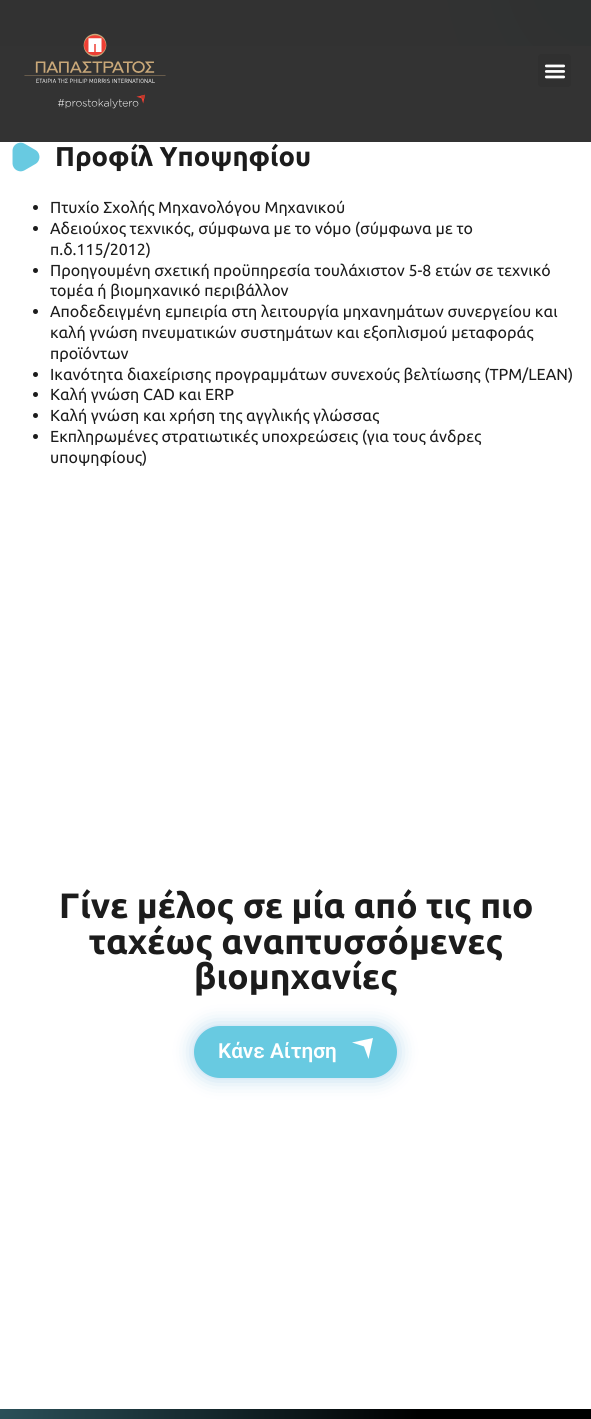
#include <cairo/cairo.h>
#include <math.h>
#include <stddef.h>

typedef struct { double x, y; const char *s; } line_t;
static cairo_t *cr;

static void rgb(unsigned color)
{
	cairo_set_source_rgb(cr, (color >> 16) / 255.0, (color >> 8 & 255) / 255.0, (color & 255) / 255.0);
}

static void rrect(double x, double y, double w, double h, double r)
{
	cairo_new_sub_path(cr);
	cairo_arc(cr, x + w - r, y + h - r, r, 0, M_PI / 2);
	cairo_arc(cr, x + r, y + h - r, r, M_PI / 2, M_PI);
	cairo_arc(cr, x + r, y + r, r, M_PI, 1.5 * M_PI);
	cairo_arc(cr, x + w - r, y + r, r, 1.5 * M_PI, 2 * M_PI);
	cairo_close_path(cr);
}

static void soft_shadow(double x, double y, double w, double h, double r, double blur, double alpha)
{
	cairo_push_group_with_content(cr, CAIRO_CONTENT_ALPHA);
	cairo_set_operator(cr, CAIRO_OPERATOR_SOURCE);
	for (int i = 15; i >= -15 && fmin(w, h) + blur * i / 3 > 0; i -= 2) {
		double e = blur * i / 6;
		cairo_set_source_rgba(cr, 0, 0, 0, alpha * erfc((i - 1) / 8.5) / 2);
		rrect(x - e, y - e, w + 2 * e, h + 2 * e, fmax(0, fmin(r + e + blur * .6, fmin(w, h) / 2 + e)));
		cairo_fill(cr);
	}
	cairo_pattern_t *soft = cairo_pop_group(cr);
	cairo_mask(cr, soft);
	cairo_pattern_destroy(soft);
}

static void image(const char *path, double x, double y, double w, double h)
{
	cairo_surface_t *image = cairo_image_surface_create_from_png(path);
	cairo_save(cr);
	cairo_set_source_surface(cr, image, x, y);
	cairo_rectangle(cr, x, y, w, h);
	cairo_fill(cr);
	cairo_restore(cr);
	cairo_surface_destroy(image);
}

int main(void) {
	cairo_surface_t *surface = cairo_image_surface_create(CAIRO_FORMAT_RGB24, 591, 1419);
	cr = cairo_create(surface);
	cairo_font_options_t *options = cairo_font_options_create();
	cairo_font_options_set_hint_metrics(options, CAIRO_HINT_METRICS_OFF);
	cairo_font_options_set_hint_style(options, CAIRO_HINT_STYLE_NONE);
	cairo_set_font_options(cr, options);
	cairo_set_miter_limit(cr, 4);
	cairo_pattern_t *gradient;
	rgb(0xffffff);
	cairo_paint(cr);
	gradient = cairo_pattern_create_radial(0, 0, 0, 0, 0, 1);
	cairo_pattern_set_matrix(gradient, &(cairo_matrix_t){1.0 / 836, 0, 0, 1.0 / 1058, -1.0 * 591 / 836, -1.0 * -37 / 1058});
	cairo_pattern_add_color_stop_rgba(gradient, 0, 0.18, 0.192, 0.192, 1);
	cairo_pattern_add_color_stop_rgba(gradient, 0.2, 0.196, 0.196, 0.196, 1);
	cairo_set_source(cr, gradient);
	cairo_pattern_destroy(gradient);
	cairo_rectangle(cr, 0, 0, 591, 46);
	cairo_fill(cr);
	rgb(0x333333);
	cairo_rectangle(cr, 0, 46, 591, 96);
	cairo_fill(cr);
	image("img/1.png", 24, 33, 142, 76);
	rgb(0x303030);
	rrect(538, 54, 33, 33, 3);
	cairo_fill(cr);
	image("img/2.png", 544, 64, 22, 15);
	image("img/3.png", 12, 142, 28, 30);
	rgb(0x1c1c1c);
	cairo_arc(cr, 35.5, 207.5, 2.5, 0, 2 * M_PI);
	cairo_fill(cr);
	cairo_arc(cr, 35.5, 228.5, 2.5, 0, 2 * M_PI);
	cairo_fill(cr);
	cairo_arc(cr, 35.5, 270.5, 2.5, 0, 2 * M_PI);
	cairo_fill(cr);
	cairo_arc(cr, 35.5, 311.5, 2.5, 0, 2 * M_PI);
	cairo_fill(cr);
	cairo_arc(cr, 35.5, 374.5, 2.5, 0, 2 * M_PI);
	cairo_fill(cr);
	cairo_arc(cr, 35.5, 394.5, 2.5, 0, 2 * M_PI);
	cairo_fill(cr);
	cairo_arc(cr, 35.5, 415.5, 2.5, 0, 2 * M_PI);
	cairo_fill(cr);
	cairo_arc(cr, 35.5, 436.5, 2.5, 0, 2 * M_PI);
	cairo_fill(cr);
	rgb(0x0075c2);
	soft_shadow(194, 1026, 203, 52, 26, 10, 0.3);
	rgb(0x68cae1);
	rrect(194, 1026, 203, 52, 26);
	cairo_fill(cr);
	rgb(0xffffff);
	cairo_new_path(cr);
	cairo_move_to(cr, 368.5, 1059);
	cairo_line_to(cr, 373, 1038);
	cairo_line_to(cr, 352, 1042.5);
	cairo_line_to(cr, 364, 1046.5);
	cairo_close_path(cr);
	cairo_fill(cr);
	gradient = cairo_pattern_create_radial(0, 0, 0, 0, 0, 1);
	cairo_pattern_set_matrix(gradient, &(cairo_matrix_t){1.0 / 836, 0, 0, 1.0 / 802, -1.0 * 0 / 836, -1.0 * 1409 / 802});
	cairo_pattern_add_color_stop_rgba(gradient, 0, 0.165, 0.314, 0.349, 1);
	cairo_pattern_add_color_stop_rgba(gradient, 0.5, 0, 0, 0, 1);
	cairo_set_source(cr, gradient);
	cairo_pattern_destroy(gradient);
	cairo_rectangle(cr, 0, 1409, 591, 10);
	cairo_fill(cr);
	cairo_select_font_face(cr, "Ubuntu", CAIRO_FONT_SLANT_NORMAL, CAIRO_FONT_WEIGHT_BOLD);
	cairo_set_font_size(cr, 27.25);
	rgb(0x1c1c1c);
	cairo_move_to(cr, 55, 166);
	cairo_show_text(cr, "Προφίλ Υποψηφίου");
	cairo_select_font_face(cr, "Ubuntu", CAIRO_FONT_SLANT_NORMAL, CAIRO_FONT_WEIGHT_NORMAL);
	cairo_set_font_size(cr, 16);
	{
		static const line_t items[] = {
			{50, 213, "Πτυχίο Σχολής Μηχανολόγου Μηχανικού"},
			{50, 234, "Αδειούχος τεχνικός, σύμφωνα με το νόμο (σύμφωνα με το"},
			{50, 255, "π.δ.115/2012)"},
			{50, 276, "Προηγουμένη σχετική προϋπηρεσία τουλάχιστον 5-8 ετών σε τεχνικό"},
			{50, 296, "τομέα ή βιομηχανικό περιβάλλον"},
			{50, 317, "Αποδεδειγμένη εμπειρία στη λειτουργία μηχανημάτων συνεργείου και"},
			{50, 338, "καλή γνώση πνευματικών συστημάτων και εξοπλισμού μεταφοράς"},
			{50, 359, "προϊόντων"},
			{50, 380, "Ικανότητα διαχείρισης προγραμμάτων συνεχούς βελτίωσης (TPM/LEAN)"},
			{50, 400, "Καλή γνώση CAD και ERP"},
			{50, 421, "Καλή γνώση και χρήση της αγγλικής γλώσσας"},
			{50, 442, "Εκπληρωμένες στρατιωτικές υποχρεώσεις (για τους άνδρες"},
			{50, 463, "υποψηφίους)"},
		};
		for (size_t i = 0; i < sizeof items / sizeof *items; i++) {
			cairo_move_to(cr, items[i].x, items[i].y);
			cairo_show_text(cr, items[i].s);
		}
	}
	cairo_select_font_face(cr, "Ubuntu", CAIRO_FONT_SLANT_NORMAL, CAIRO_FONT_WEIGHT_BOLD);
	cairo_set_font_size(cr, 35.25);
	{
		static const line_t items[] = {
			{59, 918, "Γίνε μέλος σε μία από τις πιο"},
			{89, 954, "ταχέως αναπτυσσόμενες"},
			{194, 989, "βιομηχανίες"},
		};
		for (size_t i = 0; i < sizeof items / sizeof *items; i++) {
			cairo_move_to(cr, items[i].x, items[i].y);
			cairo_show_text(cr, items[i].s);
		}
	}
	cairo_select_font_face(cr, "Roboto SemiBold", CAIRO_FONT_SLANT_NORMAL, CAIRO_FONT_WEIGHT_NORMAL);
	cairo_set_font_size(cr, 20.75);
	rgb(0xffffff);
	cairo_move_to(cr, 218, 1058);
	cairo_show_text(cr, "Κάνε Αίτηση");
	cairo_surface_write_to_png(surface, "page.png");
	cairo_font_options_destroy(options);
	cairo_destroy(cr);
	cairo_surface_destroy(surface);
	return 0;
}
